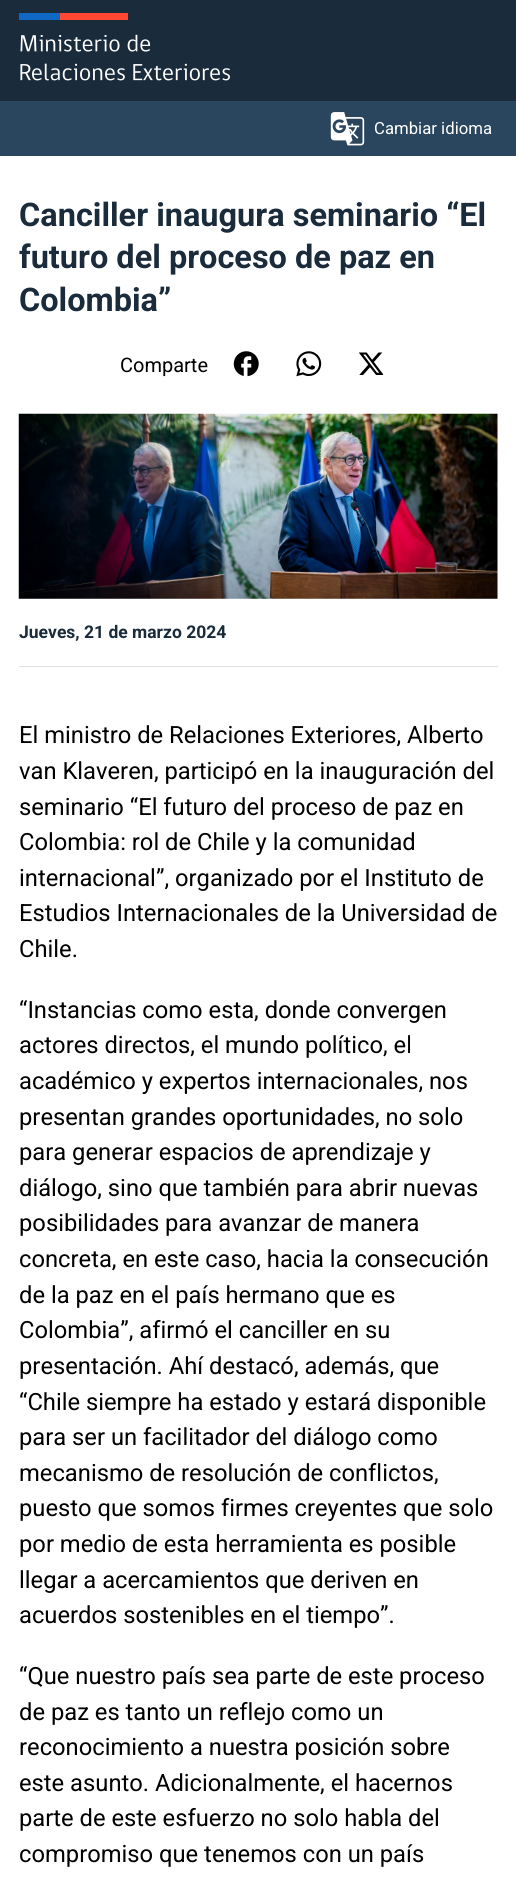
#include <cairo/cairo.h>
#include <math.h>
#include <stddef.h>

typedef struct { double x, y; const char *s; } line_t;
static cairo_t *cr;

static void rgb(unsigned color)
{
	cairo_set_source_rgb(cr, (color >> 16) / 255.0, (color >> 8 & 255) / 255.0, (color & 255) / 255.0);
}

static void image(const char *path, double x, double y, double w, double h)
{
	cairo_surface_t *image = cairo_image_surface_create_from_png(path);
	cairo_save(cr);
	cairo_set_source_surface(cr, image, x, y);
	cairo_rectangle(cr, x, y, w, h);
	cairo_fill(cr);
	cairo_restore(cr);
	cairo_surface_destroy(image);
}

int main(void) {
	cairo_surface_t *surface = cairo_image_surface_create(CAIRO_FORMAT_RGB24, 516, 1879);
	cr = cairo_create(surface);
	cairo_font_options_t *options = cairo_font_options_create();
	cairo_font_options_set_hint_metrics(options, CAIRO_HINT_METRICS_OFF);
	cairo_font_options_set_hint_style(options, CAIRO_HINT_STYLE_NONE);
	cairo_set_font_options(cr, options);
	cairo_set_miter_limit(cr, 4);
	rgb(0xffffff);
	cairo_paint(cr);
	rgb(0x1a2b3b);
	cairo_rectangle(cr, 0, 0, 516, 101);
	cairo_fill(cr);
	image("img/1.png", 19, 13, 211, 68);
	rgb(0x2a455e);
	cairo_rectangle(cr, 0, 101, 516, 55);
	cairo_fill(cr);
	image("img/2.png", 330, 112, 35, 34);
	image("img/3.png", 233, 351, 26, 26);
	image("img/4.png", 296, 351, 26, 26);
	image("img/5.png", 359, 352, 25, 23);
	image("img/6.png", 18, 413, 480, 186);
	rgb(0xe0e0e0);
	cairo_rectangle(cr, 19, 666, 479, 1);
	cairo_fill(cr);
	cairo_select_font_face(cr, "Roboto", CAIRO_FONT_SLANT_NORMAL, CAIRO_FONT_WEIGHT_NORMAL);
	cairo_set_font_size(cr, 16.75);
	rgb(0xffffff);
	cairo_move_to(cr, 374, 134);
	cairo_show_text(cr, "Cambiar idioma");
	cairo_select_font_face(cr, "Roboto", CAIRO_FONT_SLANT_NORMAL, CAIRO_FONT_WEIGHT_BOLD);
	cairo_set_font_size(cr, 32.5);
	rgb(0x1a2b3b);
	{
		static const line_t items[] = {
			{19, 226, "Canciller inaugura seminario “El"},
			{19, 268, "futuro del proceso de paz en"},
			{19, 311, "Colombia”"},
		};
		for (size_t i = 0; i < sizeof items / sizeof *items; i++) {
			cairo_move_to(cr, items[i].x, items[i].y);
			cairo_show_text(cr, items[i].s);
		}
	}
	cairo_select_font_face(cr, "Roboto", CAIRO_FONT_SLANT_NORMAL, CAIRO_FONT_WEIGHT_NORMAL);
	cairo_set_font_size(cr, 20);
	rgb(0x000000);
	cairo_move_to(cr, 120, 372);
	cairo_show_text(cr, "Comparte");
	cairo_select_font_face(cr, "Roboto", CAIRO_FONT_SLANT_NORMAL, CAIRO_FONT_WEIGHT_BOLD);
	cairo_set_font_size(cr, 17.5);
	rgb(0x1a2b3b);
	cairo_move_to(cr, 19, 638);
	cairo_show_text(cr, "Jueves, 21 de marzo 2024");
	cairo_select_font_face(cr, "Roboto", CAIRO_FONT_SLANT_NORMAL, CAIRO_FONT_WEIGHT_NORMAL);
	cairo_set_font_size(cr, 23.75);
	rgb(0x000000);
	{
		static const line_t items[] = {
			{19, 743, "El ministro de Relaciones Exteriores, Alberto"},
			{19, 779, "van Klaveren, participó en la inauguración del"},
			{19, 815, "seminario “El futuro del proceso de paz en"},
			{19, 850, "Colombia: rol de Chile y la comunidad"},
			{19, 886, "internacional”, organizado por el Instituto de"},
			{19, 921, "Estudios Internacionales de la Universidad de"},
			{19, 957, "Chile."},
			{19, 1018, "“Instancias como esta, donde convergen"},
			{19, 1053, "actores directos, el mundo político, el"},
			{19, 1089, "académico y expertos internacionales, nos"},
			{19, 1125, "presentan grandes oportunidades, no solo"},
			{19, 1160, "para generar espacios de aprendizaje y"},
			{19, 1196, "diálogo, sino que también para abrir nuevas"},
			{19, 1231, "posibilidades para avanzar de manera"},
			{19, 1267, "concreta, en este caso, hacia la consecución"},
			{19, 1303, "de la paz en el país hermano que es"},
			{19, 1338, "Colombia”, afirmó el canciller en su"},
			{19, 1374, "presentación. Ahí destacó, además, que"},
			{19, 1410, "“Chile siempre ha estado y estará disponible"},
			{19, 1445, "para ser un facilitador del diálogo como"},
			{19, 1481, "mecanismo de resolución de conflictos,"},
			{19, 1516, "puesto que somos firmes creyentes que solo"},
			{19, 1552, "por medio de esta herramienta es posible"},
			{19, 1588, "llegar a acercamientos que deriven en"},
			{19, 1623, "acuerdos sostenibles en el tiempo”."},
			{19, 1684, "“Que nuestro país sea parte de este proceso"},
			{19, 1720, "de paz es tanto un reflejo como un"},
			{19, 1755, "reconocimiento a nuestra posición sobre"},
			{19, 1791, "este asunto. Adicionalmente, el hacernos"},
			{19, 1826, "parte de este esfuerzo no solo habla del"},
			{19, 1862, "compromiso que tenemos con un país"},
		};
		for (size_t i = 0; i < sizeof items / sizeof *items; i++) {
			cairo_move_to(cr, items[i].x, items[i].y);
			cairo_show_text(cr, items[i].s);
		}
	}
	cairo_surface_write_to_png(surface, "page.png");
	cairo_font_options_destroy(options);
	cairo_destroy(cr);
	cairo_surface_destroy(surface);
	return 0;
}
